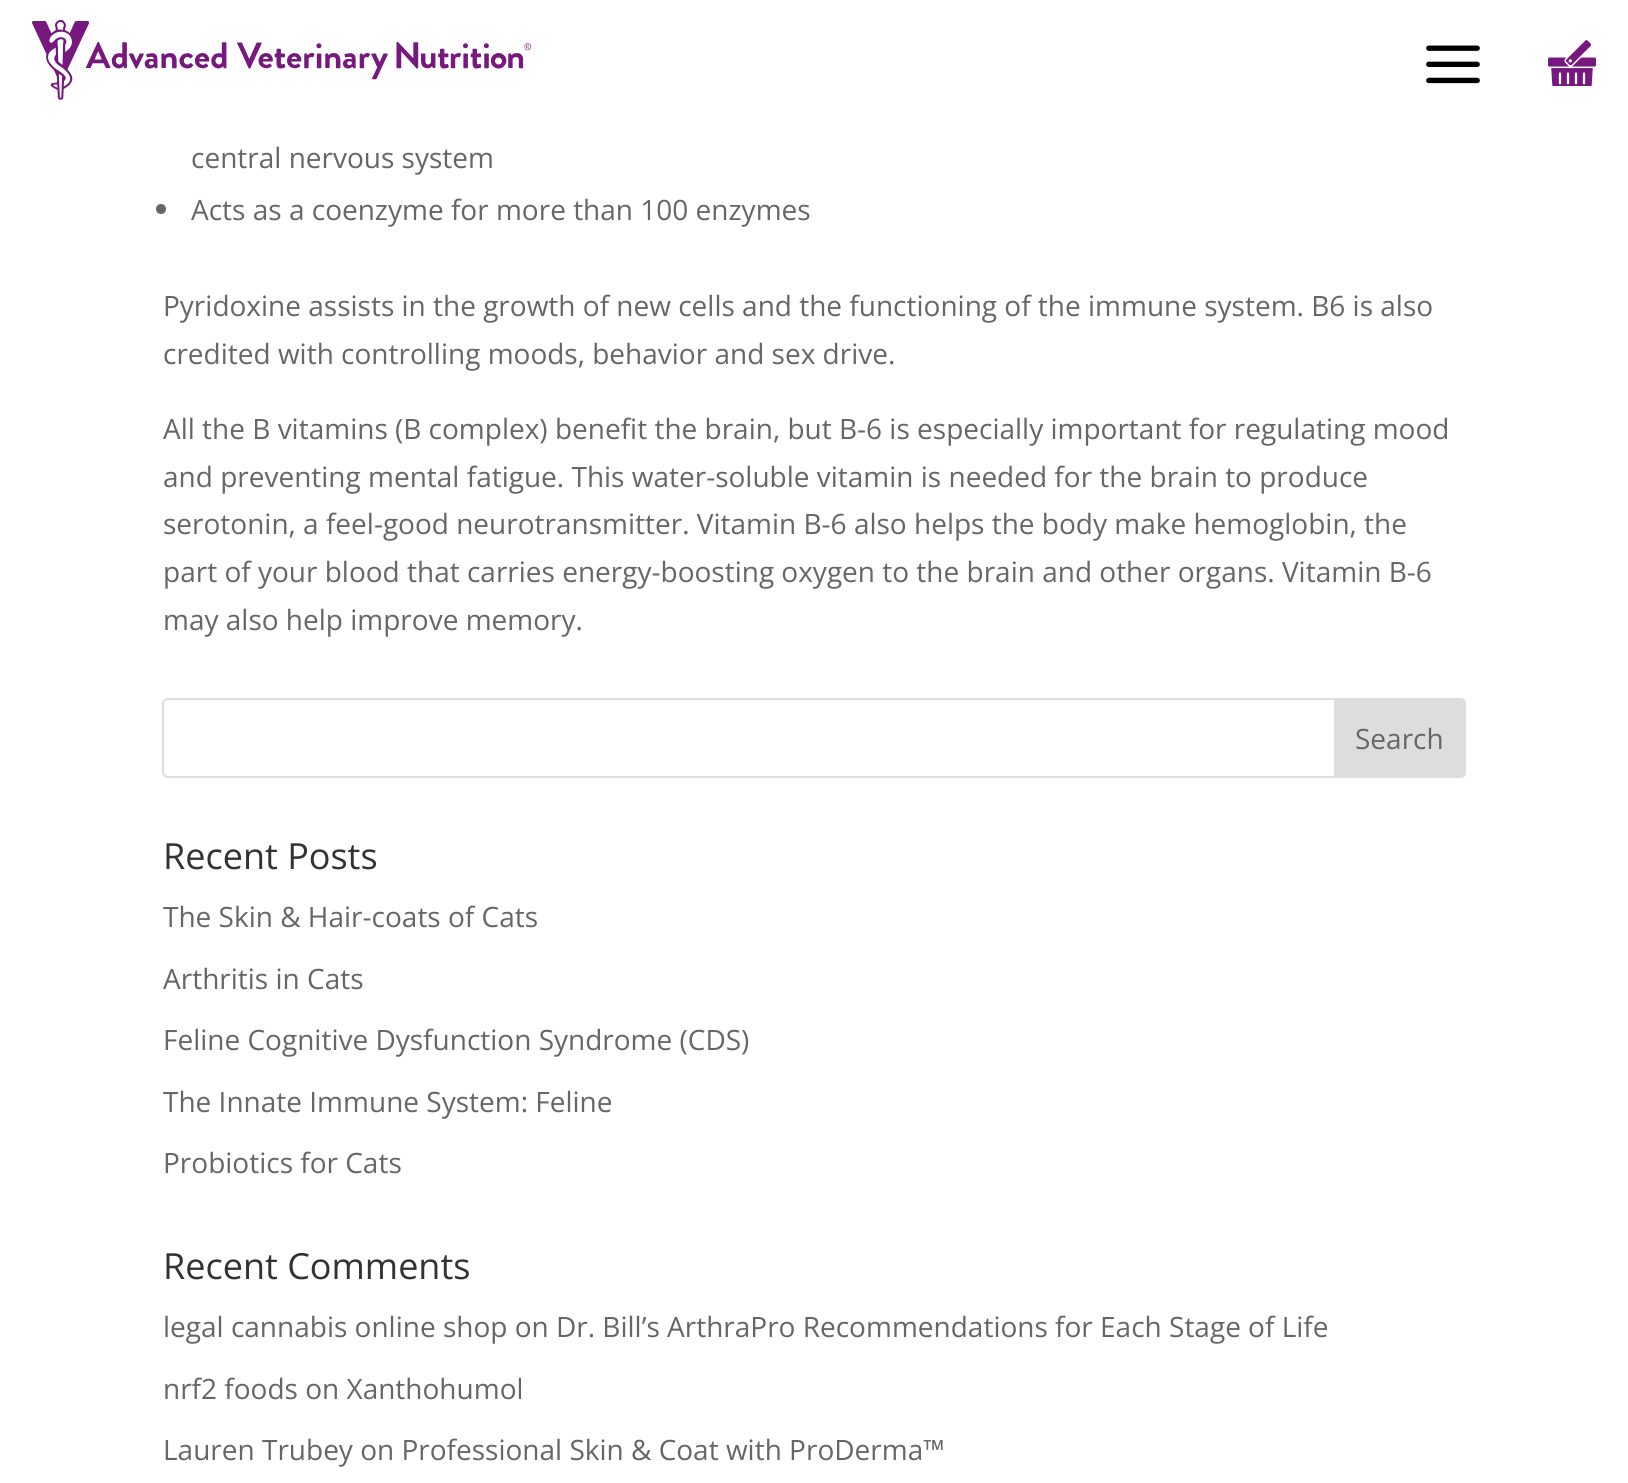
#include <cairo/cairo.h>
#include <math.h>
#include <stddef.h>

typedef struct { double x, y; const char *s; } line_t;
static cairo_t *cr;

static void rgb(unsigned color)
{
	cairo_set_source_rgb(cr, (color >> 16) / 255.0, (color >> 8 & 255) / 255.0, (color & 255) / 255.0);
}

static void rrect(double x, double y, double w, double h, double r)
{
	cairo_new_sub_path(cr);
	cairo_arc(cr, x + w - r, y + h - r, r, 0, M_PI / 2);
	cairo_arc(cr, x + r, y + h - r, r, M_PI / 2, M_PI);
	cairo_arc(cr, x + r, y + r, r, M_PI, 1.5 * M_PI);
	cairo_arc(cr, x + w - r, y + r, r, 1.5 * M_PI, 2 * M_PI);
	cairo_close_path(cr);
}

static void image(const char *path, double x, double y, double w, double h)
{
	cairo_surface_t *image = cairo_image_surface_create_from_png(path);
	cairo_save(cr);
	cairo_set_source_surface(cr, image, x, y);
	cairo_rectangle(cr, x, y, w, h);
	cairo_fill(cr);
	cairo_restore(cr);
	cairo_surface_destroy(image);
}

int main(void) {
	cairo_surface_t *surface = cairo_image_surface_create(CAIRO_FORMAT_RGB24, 1628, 1483);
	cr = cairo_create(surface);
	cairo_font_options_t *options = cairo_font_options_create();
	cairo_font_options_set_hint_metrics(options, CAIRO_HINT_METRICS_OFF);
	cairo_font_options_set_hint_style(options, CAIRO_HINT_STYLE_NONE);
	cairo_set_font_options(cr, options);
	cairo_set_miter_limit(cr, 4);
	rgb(0xffffff);
	cairo_paint(cr);
	image("img/1.png", 32, 20, 500, 80);
	image("img/2.png", 1426, 45, 54, 39);
	image("img/3.png", 1548, 40, 48, 46);
	rgb(0x666666);
	cairo_arc(cr, 161, 209, 5, 0, 2 * M_PI);
	cairo_fill(cr);
	rrect(163, 699, 1302, 78, 5);
	rgb(0xdddddd);
	cairo_stroke(cr);
	cairo_new_path(cr);
	cairo_move_to(cr, 1335, 699);
	cairo_line_to(cr, 1460, 699);
	cairo_curve_to(cr, 1463, 699, 1465, 701, 1465, 704);
	cairo_line_to(cr, 1465, 772);
	cairo_curve_to(cr, 1465, 775, 1463, 777, 1460, 777);
	cairo_line_to(cr, 1335, 777);
	cairo_close_path(cr);
	cairo_fill_preserve(cr);
	cairo_stroke(cr);
	cairo_select_font_face(cr, "Open Sans", CAIRO_FONT_SLANT_NORMAL, CAIRO_FONT_WEIGHT_NORMAL);
	cairo_set_font_size(cr, 28);
	rgb(0x666666);
	{
		static const line_t items[] = {
			{191, 168, "central nervous system"},
			{191, 220, "Acts as a coenzyme for more than 100 enzymes"},
			{163, 316, "Pyridoxine assists in the growth of new cells and the functioning of the immune system. B6 is also"},
			{163, 364, "credited with controlling moods, behavior and sex drive."},
			{163, 439, "All the B vitamins (B complex) benefit the brain, but B-6 is especially important for regulating mood"},
			{163, 487, "and preventing mental fatigue. This water-soluble vitamin is needed for the brain to produce"},
			{163, 534, "serotonin, a feel-good neurotransmitter. Vitamin B-6 also helps the body make hemoglobin, the"},
			{163, 582, "part of your blood that carries energy-boosting oxygen to the brain and other organs. Vitamin B-6"},
			{163, 630, "may also help improve memory."},
			{1355, 749, "Search"},
		};
		for (size_t i = 0; i < sizeof items / sizeof *items; i++) {
			cairo_move_to(cr, items[i].x, items[i].y);
			cairo_show_text(cr, items[i].s);
		}
	}
	cairo_set_font_size(cr, 36);
	rgb(0x333333);
	cairo_move_to(cr, 163, 869);
	cairo_show_text(cr, "Recent Posts");
	cairo_set_font_size(cr, 28);
	rgb(0x666666);
	{
		static const line_t items[] = {
			{163, 927, "The Skin & Hair-coats of Cats"},
			{163, 989, "Arthritis in Cats"},
			{163, 1050, "Feline Cognitive Dysfunction Syndrome (CDS)"},
			{163, 1112, "The Innate Immune System: Feline"},
			{163, 1173, "Probiotics for Cats"},
		};
		for (size_t i = 0; i < sizeof items / sizeof *items; i++) {
			cairo_move_to(cr, items[i].x, items[i].y);
			cairo_show_text(cr, items[i].s);
		}
	}
	cairo_set_font_size(cr, 36);
	rgb(0x333333);
	cairo_move_to(cr, 163, 1279);
	cairo_show_text(cr, "Recent Comments");
	cairo_set_font_size(cr, 28);
	rgb(0x666666);
	{
		static const line_t items[] = {
			{163, 1337, "legal cannabis online shop on Dr. Bill’s ArthraPro Recommendations for Each Stage of Life"},
			{163, 1399, "nrf2 foods on Xanthohumol"},
			{163, 1460, "Lauren Trubey on Professional Skin & Coat with ProDerma™"},
		};
		for (size_t i = 0; i < sizeof items / sizeof *items; i++) {
			cairo_move_to(cr, items[i].x, items[i].y);
			cairo_show_text(cr, items[i].s);
		}
	}
	cairo_surface_write_to_png(surface, "page.png");
	cairo_font_options_destroy(options);
	cairo_destroy(cr);
	cairo_surface_destroy(surface);
	return 0;
}
